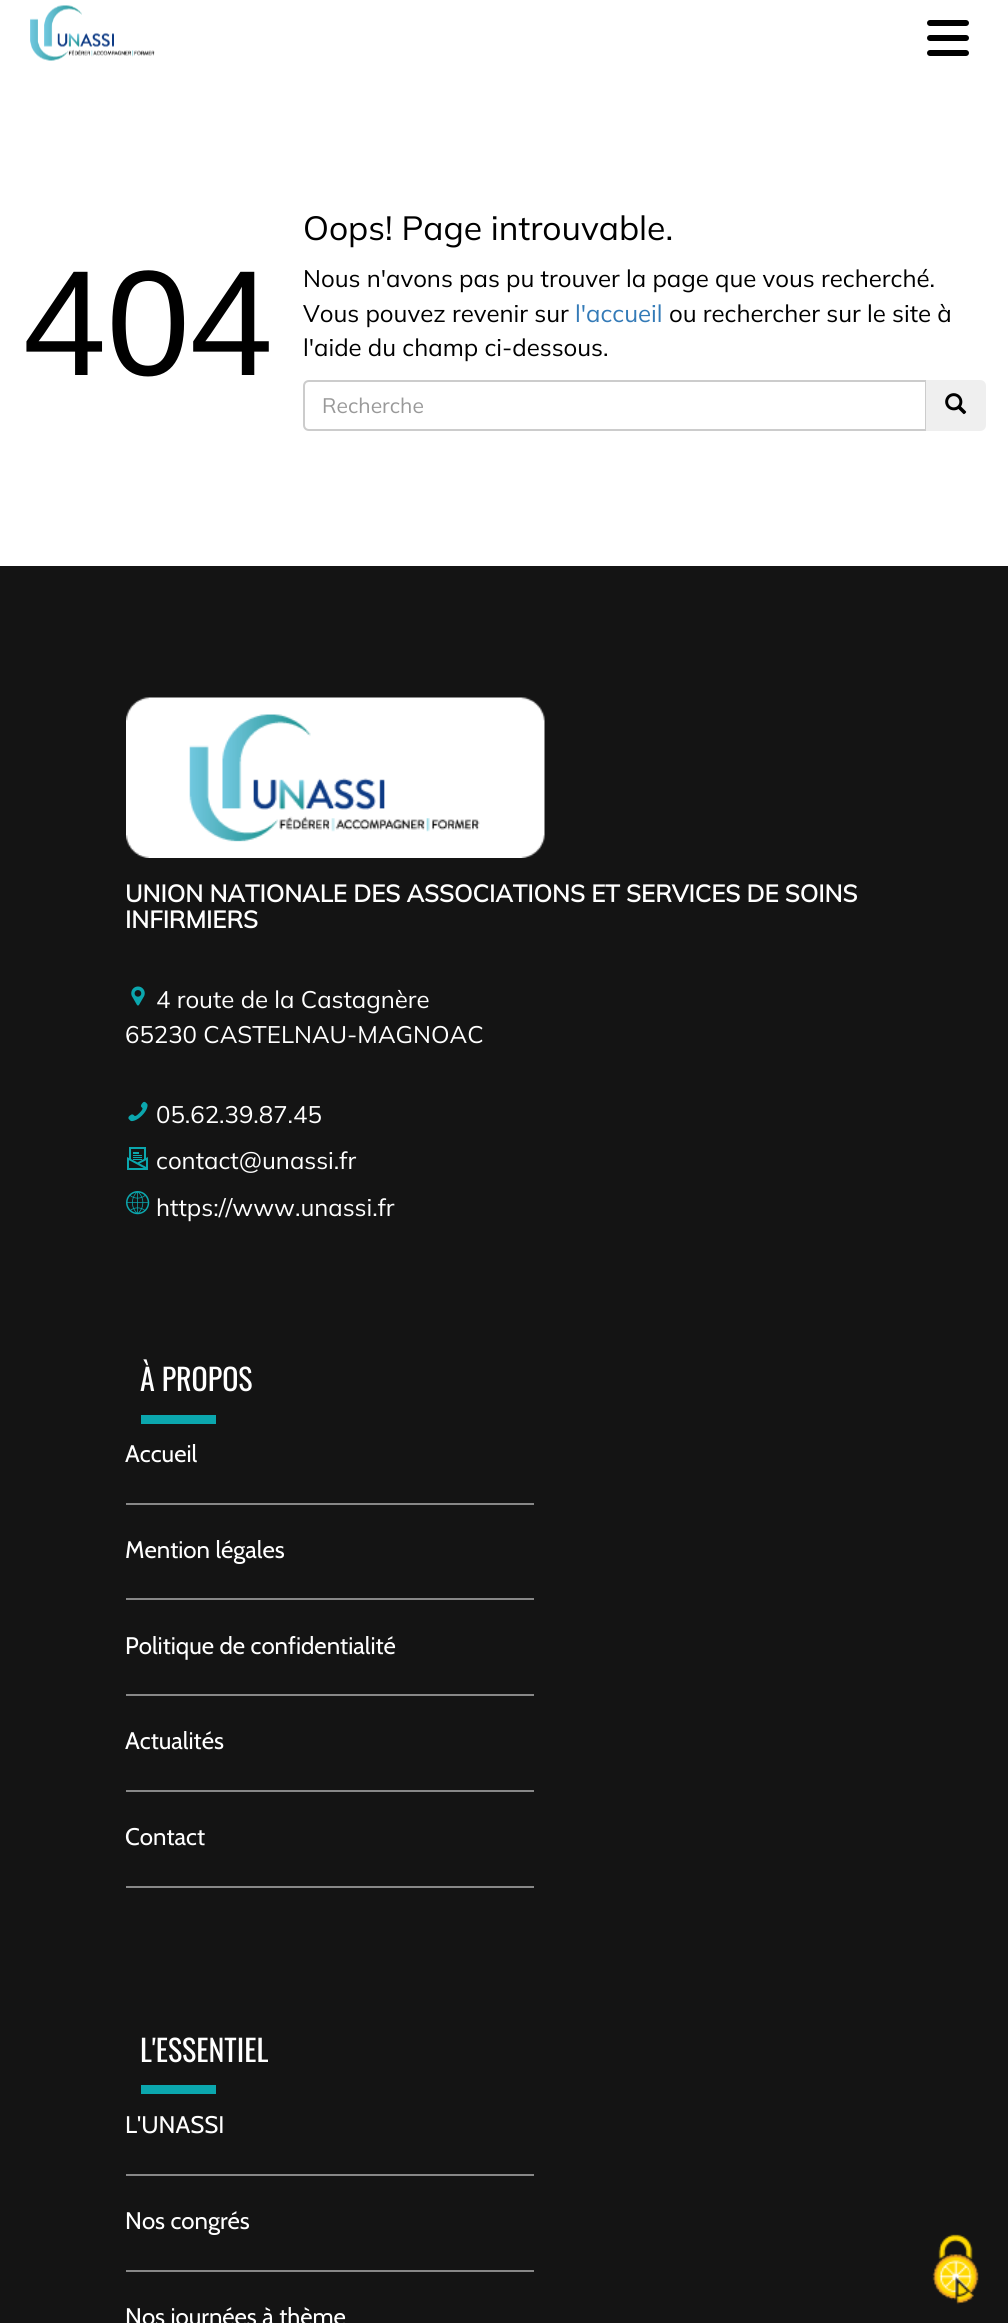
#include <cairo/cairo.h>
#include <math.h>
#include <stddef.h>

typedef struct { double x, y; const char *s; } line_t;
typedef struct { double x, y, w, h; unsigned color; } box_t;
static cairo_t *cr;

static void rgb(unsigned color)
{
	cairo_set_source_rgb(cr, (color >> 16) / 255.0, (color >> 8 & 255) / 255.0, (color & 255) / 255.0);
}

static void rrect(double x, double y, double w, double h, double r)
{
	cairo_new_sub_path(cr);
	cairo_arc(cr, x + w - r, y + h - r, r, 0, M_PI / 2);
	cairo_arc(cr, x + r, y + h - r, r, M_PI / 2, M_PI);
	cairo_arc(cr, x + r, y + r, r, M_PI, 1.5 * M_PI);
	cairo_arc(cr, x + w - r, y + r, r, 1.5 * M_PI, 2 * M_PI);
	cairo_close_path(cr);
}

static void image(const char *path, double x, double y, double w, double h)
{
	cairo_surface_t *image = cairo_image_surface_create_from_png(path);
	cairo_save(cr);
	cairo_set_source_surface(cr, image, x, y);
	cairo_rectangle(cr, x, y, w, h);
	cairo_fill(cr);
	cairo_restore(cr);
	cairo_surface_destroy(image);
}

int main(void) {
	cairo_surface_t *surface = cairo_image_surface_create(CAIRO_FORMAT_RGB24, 1008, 2323);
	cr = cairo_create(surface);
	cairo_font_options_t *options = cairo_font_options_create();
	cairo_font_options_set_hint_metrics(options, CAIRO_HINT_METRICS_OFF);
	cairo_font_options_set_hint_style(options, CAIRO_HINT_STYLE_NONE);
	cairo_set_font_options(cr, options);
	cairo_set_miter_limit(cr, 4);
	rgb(0xffffff);
	cairo_paint(cr);
	image("img/1.png", 30, 5, 125, 56);
	rgb(0x000000);
	rrect(927, 20, 42, 6, 3);
	cairo_fill(cr);
	rrect(927, 35, 42, 6, 3);
	cairo_fill(cr);
	rrect(927, 50, 42, 6, 3);
	cairo_fill(cr);
	cairo_new_path(cr);
	cairo_move_to(cr, 309, 381);
	cairo_line_to(cr, 926, 381);
	cairo_line_to(cr, 926, 430);
	cairo_line_to(cr, 309, 430);
	cairo_curve_to(cr, 306, 430, 304, 428, 304, 425);
	cairo_line_to(cr, 304, 386);
	cairo_curve_to(cr, 304, 383, 306, 381, 309, 381);
	cairo_close_path(cr);
	rgb(0xcccccc);
	cairo_stroke(cr);
	rgb(0xefefef);
	cairo_new_path(cr);
	cairo_move_to(cr, 926, 380);
	cairo_line_to(cr, 980, 380);
	cairo_curve_to(cr, 983.5, 380, 986, 382.5, 986, 386);
	cairo_line_to(cr, 986, 425);
	cairo_curve_to(cr, 986, 428.5, 983.5, 431, 980, 431);
	cairo_line_to(cr, 926, 431);
	cairo_close_path(cr);
	cairo_fill(cr);
	image("img/2.png", 945, 393, 22, 22);
	rgb(0x141414);
	cairo_rectangle(cr, 0, 566, 1008, 1757);
	cairo_fill(cr);
	image("img/3.png", 126, 697, 419, 161);
	image("img/4.png", 131, 986, 14, 20);
	image("img/5.png", 128, 1101, 20, 21);
	image("img/6.png", 127, 1147, 21, 23);
	image("img/7.png", 126, 1191, 24, 24);
	{
		static const box_t items[] = {
			{141, 1415, 75, 9, 0x0ba7ae},
			{126, 1503, 408, 2, 0x888888},
			{126, 1598, 408, 2, 0x888888},
			{126, 1694, 408, 2, 0x888888},
			{126, 1790, 408, 2, 0x888888},
			{126, 1886, 408, 2, 0x888888},
			{141, 2085, 75, 9, 0x0ba7ae},
			{126, 2174, 408, 2, 0x888888},
			{126, 2270, 408, 2, 0x888888},
		};
		for (size_t i = 0; i < sizeof items / sizeof *items; i++) {
			rgb(items[i].color);
			cairo_rectangle(cr, items[i].x, items[i].y, items[i].w, items[i].h);
			cairo_fill(cr);
		}
	}
	image("img/8.png", 932, 2234, 47, 71);
	cairo_select_font_face(cr, "Liberation Sans", CAIRO_FONT_SLANT_NORMAL, CAIRO_FONT_WEIGHT_NORMAL);
	cairo_set_font_size(cr, 150);
	rgb(0x000000);
	cairo_move_to(cr, 23, 375);
	cairo_show_text(cr, "404");
	cairo_select_font_face(cr, "Mulish ExtraLight", CAIRO_FONT_SLANT_NORMAL, CAIRO_FONT_WEIGHT_NORMAL);
	cairo_set_font_size(cr, 33.6);
	cairo_move_to(cr, 303, 240);
	cairo_show_text(cr, "Oops! Page introuvable.");
	cairo_set_font_size(cr, 24);
	cairo_move_to(cr, 303, 287);
	cairo_show_text(cr, "Nous n'avons pas pu trouver la page que vous recherché.");
	cairo_move_to(cr, 303, 322);
	cairo_show_text(cr, "Vous pouvez revenir sur");
	rgb(0x337ab7);
	cairo_move_to(cr, 575, 322);
	cairo_show_text(cr, "l'accueil");
	rgb(0x000000);
	cairo_move_to(cr, 669, 322);
	cairo_show_text(cr, "ou rechercher sur le site à");
	cairo_move_to(cr, 303, 356);
	cairo_show_text(cr, "l'aide du champ ci-dessous.");
	cairo_set_font_size(cr, 21);
	rgb(0x999999);
	cairo_move_to(cr, 322, 413);
	cairo_show_text(cr, "Recherche");
	cairo_select_font_face(cr, "Mulish", CAIRO_FONT_SLANT_NORMAL, CAIRO_FONT_WEIGHT_BOLD);
	cairo_set_font_size(cr, 24);
	rgb(0xffffff);
	cairo_move_to(cr, 125, 902);
	cairo_show_text(cr, "UNION NATIONALE DES ASSOCIATIONS ET SERVICES DE SOINS");
	cairo_move_to(cr, 125, 928);
	cairo_show_text(cr, "INFIRMIERS");
	cairo_select_font_face(cr, "Mulish ExtraLight", CAIRO_FONT_SLANT_NORMAL, CAIRO_FONT_WEIGHT_NORMAL);
	{
		static const line_t items[] = {
			{156, 1008, "4 route de la Castagnère"},
			{125, 1043, "65230 CASTELNAU-MAGNOAC"},
			{156, 1123, "05.62.39.87.45"},
			{156, 1169, "contact@unassi.fr"},
			{156, 1216, "https://www.unassi.fr"},
		};
		for (size_t i = 0; i < sizeof items / sizeof *items; i++) {
			cairo_move_to(cr, items[i].x, items[i].y);
			cairo_show_text(cr, items[i].s);
		}
	}
	cairo_select_font_face(cr, "Oswald", CAIRO_FONT_SLANT_NORMAL, CAIRO_FONT_WEIGHT_NORMAL);
	cairo_set_font_size(cr, 30);
	cairo_move_to(cr, 140, 1391);
	cairo_show_text(cr, "À PROPOS");
	cairo_select_font_face(cr, "Cabin", CAIRO_FONT_SLANT_NORMAL, CAIRO_FONT_WEIGHT_NORMAL);
	cairo_set_font_size(cr, 24);
	{
		static const line_t items[] = {
			{125, 1462, "Accueil"},
			{125, 1558, "Mention légales"},
			{125, 1654, "Politique de confidentialité"},
			{125, 1749, "Actualités"},
			{125, 1845, "Contact"},
		};
		for (size_t i = 0; i < sizeof items / sizeof *items; i++) {
			cairo_move_to(cr, items[i].x, items[i].y);
			cairo_show_text(cr, items[i].s);
		}
	}
	cairo_select_font_face(cr, "Oswald", CAIRO_FONT_SLANT_NORMAL, CAIRO_FONT_WEIGHT_NORMAL);
	cairo_set_font_size(cr, 30);
	cairo_move_to(cr, 140, 2062);
	cairo_show_text(cr, "L'ESSENTIEL");
	cairo_select_font_face(cr, "Cabin", CAIRO_FONT_SLANT_NORMAL, CAIRO_FONT_WEIGHT_NORMAL);
	cairo_set_font_size(cr, 24);
	{
		static const line_t items[] = {
			{125, 2133, "L'UNASSI"},
			{125, 2229, "Nos congrés"},
			{125, 2325, "Nos journées à thème"},
		};
		for (size_t i = 0; i < sizeof items / sizeof *items; i++) {
			cairo_move_to(cr, items[i].x, items[i].y);
			cairo_show_text(cr, items[i].s);
		}
	}
	cairo_surface_write_to_png(surface, "page.png");
	cairo_font_options_destroy(options);
	cairo_destroy(cr);
	cairo_surface_destroy(surface);
	return 0;
}
